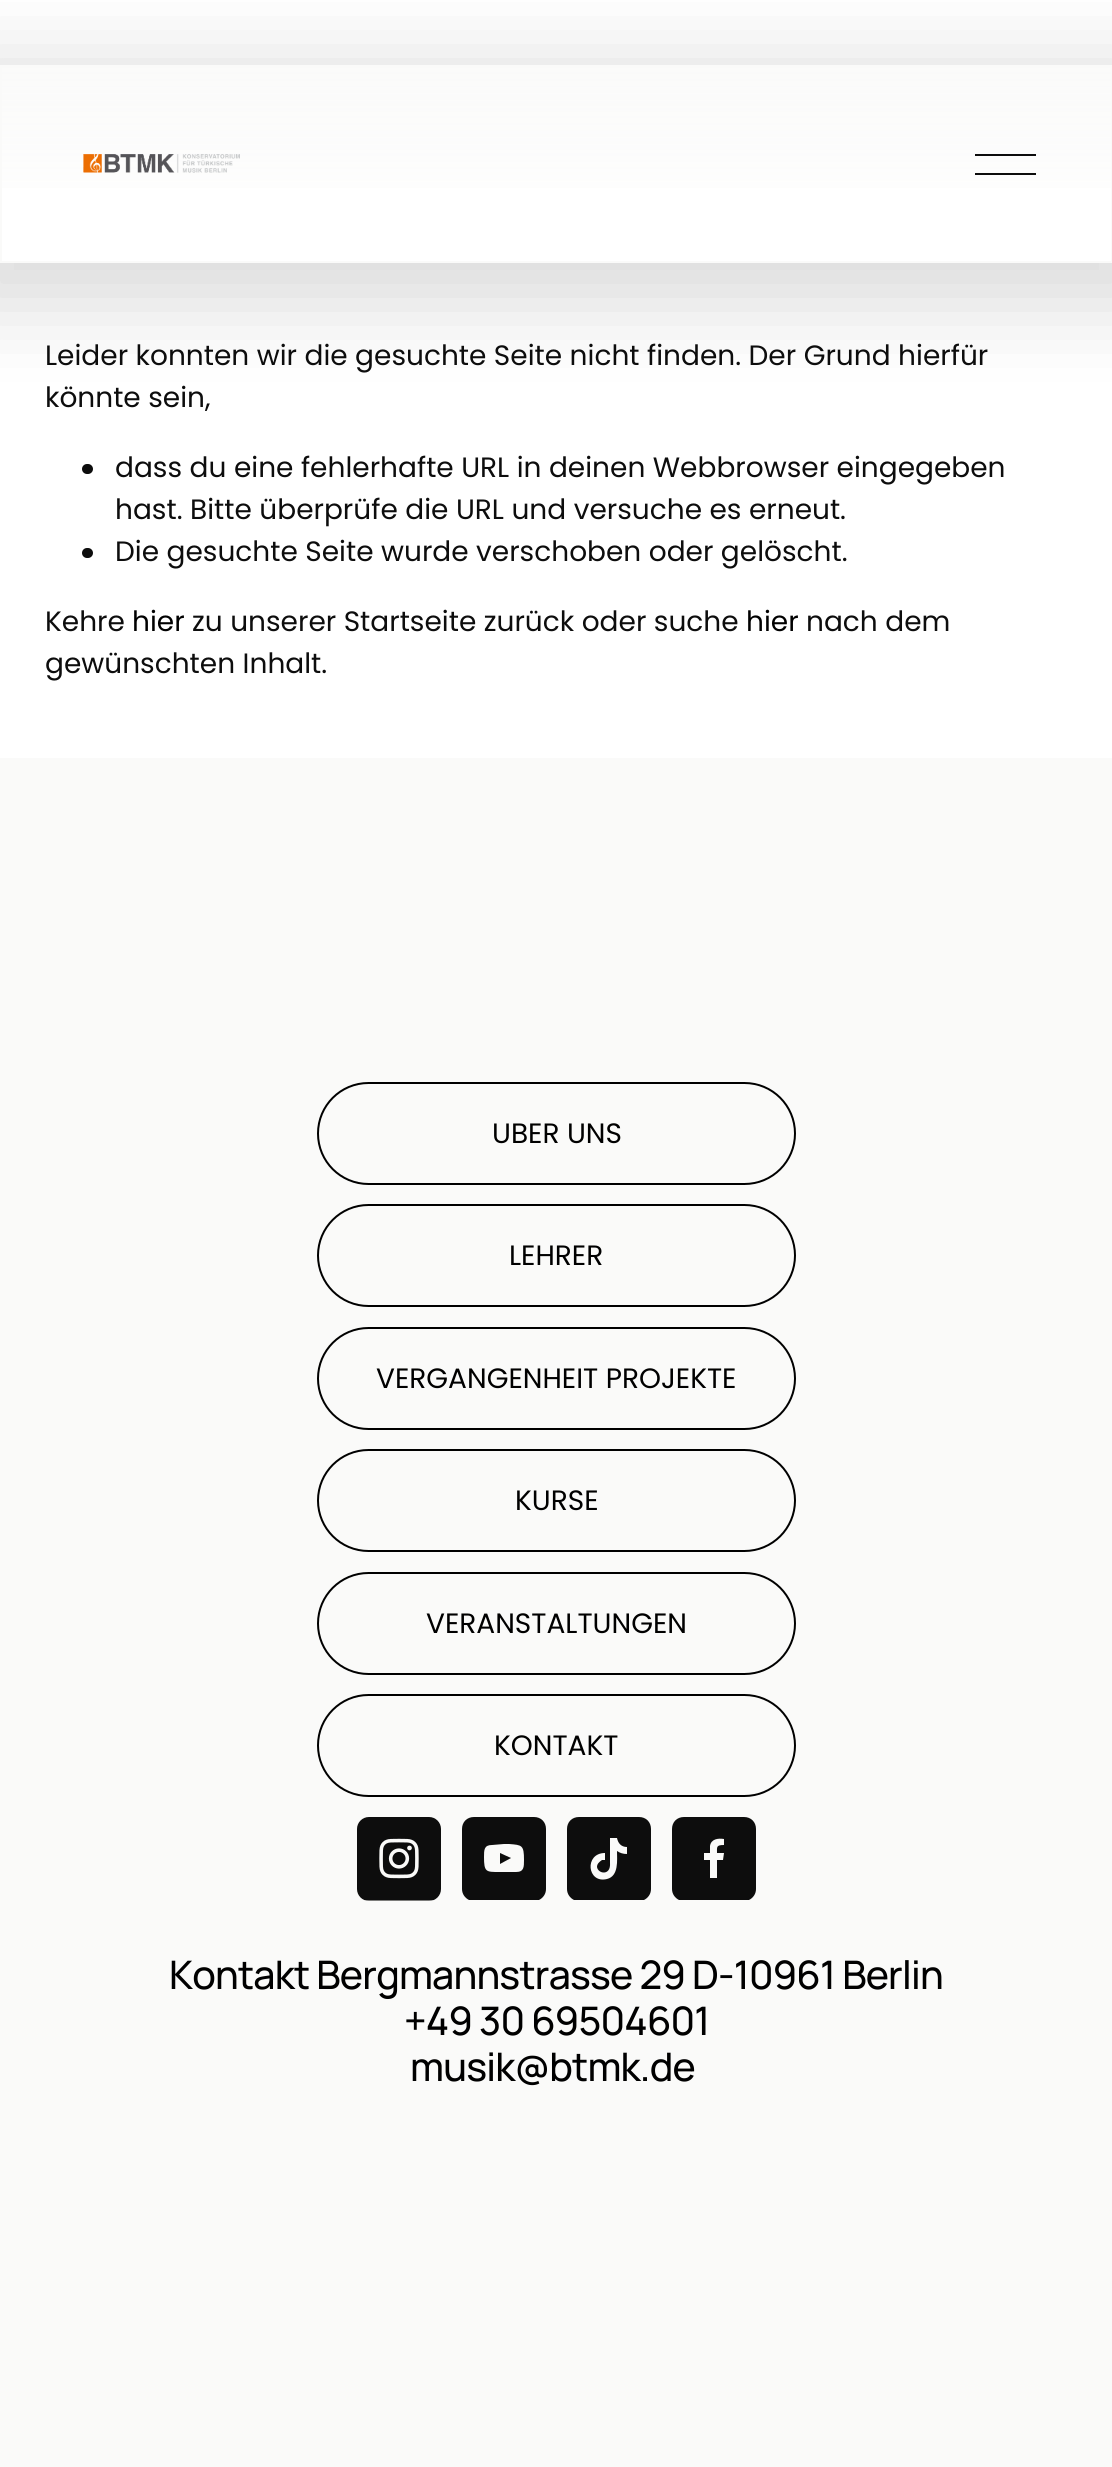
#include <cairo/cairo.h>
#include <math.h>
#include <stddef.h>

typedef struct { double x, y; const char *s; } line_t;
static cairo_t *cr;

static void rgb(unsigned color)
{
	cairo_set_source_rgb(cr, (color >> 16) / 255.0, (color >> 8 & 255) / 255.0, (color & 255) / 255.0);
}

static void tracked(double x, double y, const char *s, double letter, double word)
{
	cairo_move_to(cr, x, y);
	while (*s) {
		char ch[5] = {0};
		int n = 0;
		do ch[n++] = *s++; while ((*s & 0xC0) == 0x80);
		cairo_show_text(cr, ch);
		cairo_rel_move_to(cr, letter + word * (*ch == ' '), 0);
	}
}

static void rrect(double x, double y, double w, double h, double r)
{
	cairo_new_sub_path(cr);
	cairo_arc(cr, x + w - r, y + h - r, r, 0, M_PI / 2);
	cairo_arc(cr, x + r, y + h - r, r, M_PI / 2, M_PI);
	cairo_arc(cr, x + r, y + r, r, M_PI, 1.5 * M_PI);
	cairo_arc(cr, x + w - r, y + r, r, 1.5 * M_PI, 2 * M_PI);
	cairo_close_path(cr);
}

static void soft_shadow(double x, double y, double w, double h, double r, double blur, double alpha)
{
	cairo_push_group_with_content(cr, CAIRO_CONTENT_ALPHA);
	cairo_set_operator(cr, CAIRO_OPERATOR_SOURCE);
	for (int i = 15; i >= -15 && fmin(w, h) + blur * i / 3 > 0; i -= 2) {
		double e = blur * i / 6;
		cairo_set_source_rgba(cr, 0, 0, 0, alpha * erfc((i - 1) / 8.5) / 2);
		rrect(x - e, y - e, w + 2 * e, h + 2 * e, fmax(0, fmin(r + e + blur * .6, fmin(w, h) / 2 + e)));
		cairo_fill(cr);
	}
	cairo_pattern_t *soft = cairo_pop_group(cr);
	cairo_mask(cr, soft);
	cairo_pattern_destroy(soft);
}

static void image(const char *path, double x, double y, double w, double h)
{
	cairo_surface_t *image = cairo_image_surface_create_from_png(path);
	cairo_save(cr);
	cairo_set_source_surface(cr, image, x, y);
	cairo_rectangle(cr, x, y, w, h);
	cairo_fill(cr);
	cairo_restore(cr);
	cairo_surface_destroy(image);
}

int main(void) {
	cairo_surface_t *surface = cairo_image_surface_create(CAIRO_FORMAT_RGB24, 1112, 2467);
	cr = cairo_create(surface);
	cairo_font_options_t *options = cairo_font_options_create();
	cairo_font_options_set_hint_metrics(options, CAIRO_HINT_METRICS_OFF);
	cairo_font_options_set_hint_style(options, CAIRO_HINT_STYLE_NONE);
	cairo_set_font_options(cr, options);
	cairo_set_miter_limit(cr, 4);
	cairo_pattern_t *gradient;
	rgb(0xffffff);
	cairo_paint(cr);
	cairo_save(cr);
	cairo_set_fill_rule(cr, CAIRO_FILL_RULE_EVEN_ODD);
	cairo_new_path(cr);
	cairo_move_to(cr, 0, 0);
	cairo_line_to(cr, 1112, 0);
	cairo_line_to(cr, 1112, 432);
	cairo_line_to(cr, 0, 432);
	cairo_close_path(cr);
	cairo_move_to(cr, 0, 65);
	cairo_line_to(cr, 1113, 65);
	cairo_line_to(cr, 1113, 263);
	cairo_line_to(cr, 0, 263);
	cairo_close_path(cr);
	cairo_clip(cr);
	rgb(0x0d0d0d);
	soft_shadow(-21, 65, 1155, 240, 0, 42, 0.15);
	cairo_restore(cr);
	gradient = cairo_pattern_create_linear(557, 65, 557, 263);
	cairo_pattern_add_color_stop_rgba(gradient, 0, 0.98, 0.98, 0.976, 0.9);
	cairo_pattern_add_color_stop_rgba(gradient, 1, 0.98, 0.98, 0.976, 0);
	cairo_set_source(cr, gradient);
	cairo_pattern_destroy(gradient);
	cairo_rectangle(cr, 2, 67, 1109, 121);
	cairo_fill(cr);
	cairo_rectangle(cr, 1, 66, 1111, 196);
	rgb(0xfafaf9);
	cairo_stroke(cr);
	image("img/1.png", 83, 154, 157, 19);
	rgb(0x0d0d0d);
	cairo_rectangle(cr, 975, 154, 61, 2);
	cairo_fill(cr);
	cairo_rectangle(cr, 975, 173, 61, 2);
	cairo_fill(cr);
	rrect(82, 464, 11, 10, 5);
	cairo_fill(cr);
	rrect(82, 548, 11, 10, 5);
	cairo_fill(cr);
	rgb(0xfafaf9);
	cairo_rectangle(cr, 0, 758, 1112, 1709);
	cairo_fill(cr);
	rrect(318, 1083, 477, 101, 50.5);
	rgb(0x000000);
	cairo_stroke(cr);
	rrect(318, 1205, 477, 101, 50.5);
	cairo_stroke(cr);
	rrect(318, 1328, 477, 101, 50.5);
	cairo_stroke(cr);
	rrect(318, 1450, 477, 101, 50.5);
	cairo_stroke(cr);
	rrect(318, 1573, 477, 101, 50.5);
	cairo_stroke(cr);
	rrect(318, 1695, 477, 101, 50.5);
	cairo_stroke(cr);
	image("img/2.png", 357, 1817, 84, 84);
	rgb(0x0d0d0d);
	cairo_set_fill_rule(cr, CAIRO_FILL_RULE_EVEN_ODD);
	cairo_new_path(cr);
	cairo_move_to(cr, 474, 1817);
	cairo_curve_to(cr, 467, 1817, 462, 1822, 462, 1829);
	cairo_line_to(cr, 462, 1889);
	cairo_curve_to(cr, 462, 1894, 465, 1898, 469, 1900);
	cairo_line_to(cr, 539, 1900);
	cairo_curve_to(cr, 543, 1898, 546, 1894, 546, 1889);
	cairo_line_to(cr, 546, 1829);
	cairo_curve_to(cr, 546, 1822, 541, 1817, 534, 1817);
	cairo_close_path(cr);
	cairo_move_to(cr, 524, 1860);
	cairo_curve_to(cr, 524, 1845, 522, 1845, 509, 1844);
	cairo_line_to(cr, 504, 1844);
	cairo_line_to(cr, 492, 1845);
	cairo_curve_to(cr, 484, 1845, 484, 1850, 484, 1857);
	cairo_curve_to(cr, 484, 1872, 486, 1872, 499, 1872);
	cairo_line_to(cr, 516, 1872);
	cairo_curve_to(cr, 524, 1872, 524, 1867, 524, 1860);
	cairo_close_path(cr);
	cairo_move_to(cr, 500, 1864);
	cairo_line_to(cr, 500, 1853);
	cairo_line_to(cr, 511, 1858);
	cairo_close_path(cr);
	cairo_fill(cr);
	cairo_new_path(cr);
	cairo_move_to(cr, 579, 1817);
	cairo_curve_to(cr, 572, 1817, 567, 1822, 567, 1829);
	cairo_line_to(cr, 567, 1889);
	cairo_curve_to(cr, 567, 1894, 570, 1898, 574, 1900);
	cairo_line_to(cr, 644, 1900);
	cairo_curve_to(cr, 648, 1898, 651, 1894, 651, 1889);
	cairo_line_to(cr, 651, 1829);
	cairo_curve_to(cr, 651, 1822, 646, 1817, 639, 1817);
	cairo_close_path(cr);
	cairo_move_to(cr, 627, 1847);
	cairo_line_to(cr, 627, 1854);
	cairo_curve_to(cr, 623, 1854, 620, 1853, 617, 1851);
	cairo_curve_to(cr, 617, 1860, 619, 1876, 607, 1879);
	cairo_curve_to(cr, 587, 1884, 584, 1853, 605, 1853);
	cairo_line_to(cr, 605, 1860);
	cairo_line_to(cr, 602, 1860);
	cairo_curve_to(cr, 599, 1862, 597, 1864, 597, 1867);
	cairo_curve_to(cr, 598, 1874, 611, 1876, 610, 1863);
	cairo_line_to(cr, 610, 1838);
	cairo_line_to(cr, 617, 1838);
	cairo_curve_to(cr, 618, 1843, 621, 1847, 627, 1847);
	cairo_close_path(cr);
	cairo_fill(cr);
	cairo_new_path(cr);
	cairo_move_to(cr, 684, 1817);
	cairo_curve_to(cr, 677, 1817, 672, 1822, 672, 1829);
	cairo_line_to(cr, 672, 1889);
	cairo_curve_to(cr, 672, 1894, 675, 1898, 679, 1900);
	cairo_line_to(cr, 749, 1900);
	cairo_curve_to(cr, 753, 1898, 756, 1894, 756, 1889);
	cairo_line_to(cr, 756, 1829);
	cairo_curve_to(cr, 756, 1822, 751, 1817, 744, 1817);
	cairo_close_path(cr);
	cairo_move_to(cr, 724, 1845);
	cairo_line_to(cr, 724, 1839);
	cairo_curve_to(cr, 718, 1838, 711, 1839, 710, 1846);
	cairo_line_to(cr, 710, 1853);
	cairo_line_to(cr, 704, 1853);
	cairo_line_to(cr, 704, 1860);
	cairo_line_to(cr, 710, 1860);
	cairo_line_to(cr, 710, 1878);
	cairo_line_to(cr, 717, 1878);
	cairo_line_to(cr, 717, 1860);
	cairo_line_to(cr, 723, 1860);
	cairo_line_to(cr, 724, 1853);
	cairo_line_to(cr, 717, 1853);
	cairo_curve_to(cr, 717, 1847, 716, 1845, 724, 1845);
	cairo_close_path(cr);
	cairo_fill(cr);
	cairo_select_font_face(cr, "Poppins", CAIRO_FONT_SLANT_NORMAL, CAIRO_FONT_WEIGHT_NORMAL);
	cairo_set_font_size(cr, 28);
	{
		static const line_t items[] = {
			{45, 365, "Leider konnten wir die gesuchte Seite nicht finden. Der Grund hierfür"},
			{45, 407, "könnte sein,"},
			{115, 477, "dass du eine fehlerhafte URL in deinen Webbrowser eingegeben"},
			{115, 519, "hast. Bitte überprüfe die URL und versuche es erneut."},
			{115, 561, "Die gesuchte Seite wurde verschoben oder gelöscht."},
			{45, 631, "Kehre"},
		};
		for (size_t i = 0; i < sizeof items / sizeof *items; i++) {
			cairo_move_to(cr, items[i].x, items[i].y);
			cairo_show_text(cr, items[i].s);
		}
	}
	rgb(0x000000);
	cairo_move_to(cr, 132, 631);
	cairo_show_text(cr, "hier");
	rgb(0x0d0d0d);
	cairo_move_to(cr, 192, 631);
	cairo_show_text(cr, "zu unserer Startseite zurück oder suche");
	rgb(0x000000);
	cairo_move_to(cr, 746, 631);
	cairo_show_text(cr, "hier");
	rgb(0x0d0d0d);
	cairo_move_to(cr, 806, 631);
	cairo_show_text(cr, "nach dem");
	cairo_move_to(cr, 45, 673);
	cairo_show_text(cr, "gewünschten Inhalt.");
	rgb(0x000000);
	{
		static const line_t items[] = {
			{492, 1143, "UBER UNS"},
			{509, 1265, "LEHRER"},
			{376, 1388, "VERGANGENHEIT PROJEKTE"},
			{515, 1510, "KURSE"},
			{426, 1633, "VERANSTALTUNGEN"},
			{494, 1755, "KONTAKT"},
		};
		for (size_t i = 0; i < sizeof items / sizeof *items; i++) {
			cairo_move_to(cr, items[i].x, items[i].y);
			cairo_show_text(cr, items[i].s);
		}
	}
	cairo_select_font_face(cr, "Manrope Medium", CAIRO_FONT_SLANT_NORMAL, CAIRO_FONT_WEIGHT_NORMAL);
	cairo_set_font_size(cr, 39.3);
	{
		static const line_t items[] = {
			{169, 1989, "Kontakt Bergmannstrasse 29 D-10961 Berlin"},
			{404, 2035, "+49 30 69504601"},
			{410, 2081, "musik@btmk.de"},
		};
		for (size_t i = 0; i < sizeof items / sizeof *items; i++) {
			tracked(items[i].x, items[i].y, items[i].s, -0.8, 0);
		}
	}
	cairo_surface_write_to_png(surface, "page.png");
	cairo_font_options_destroy(options);
	cairo_destroy(cr);
	cairo_surface_destroy(surface);
	return 0;
}
